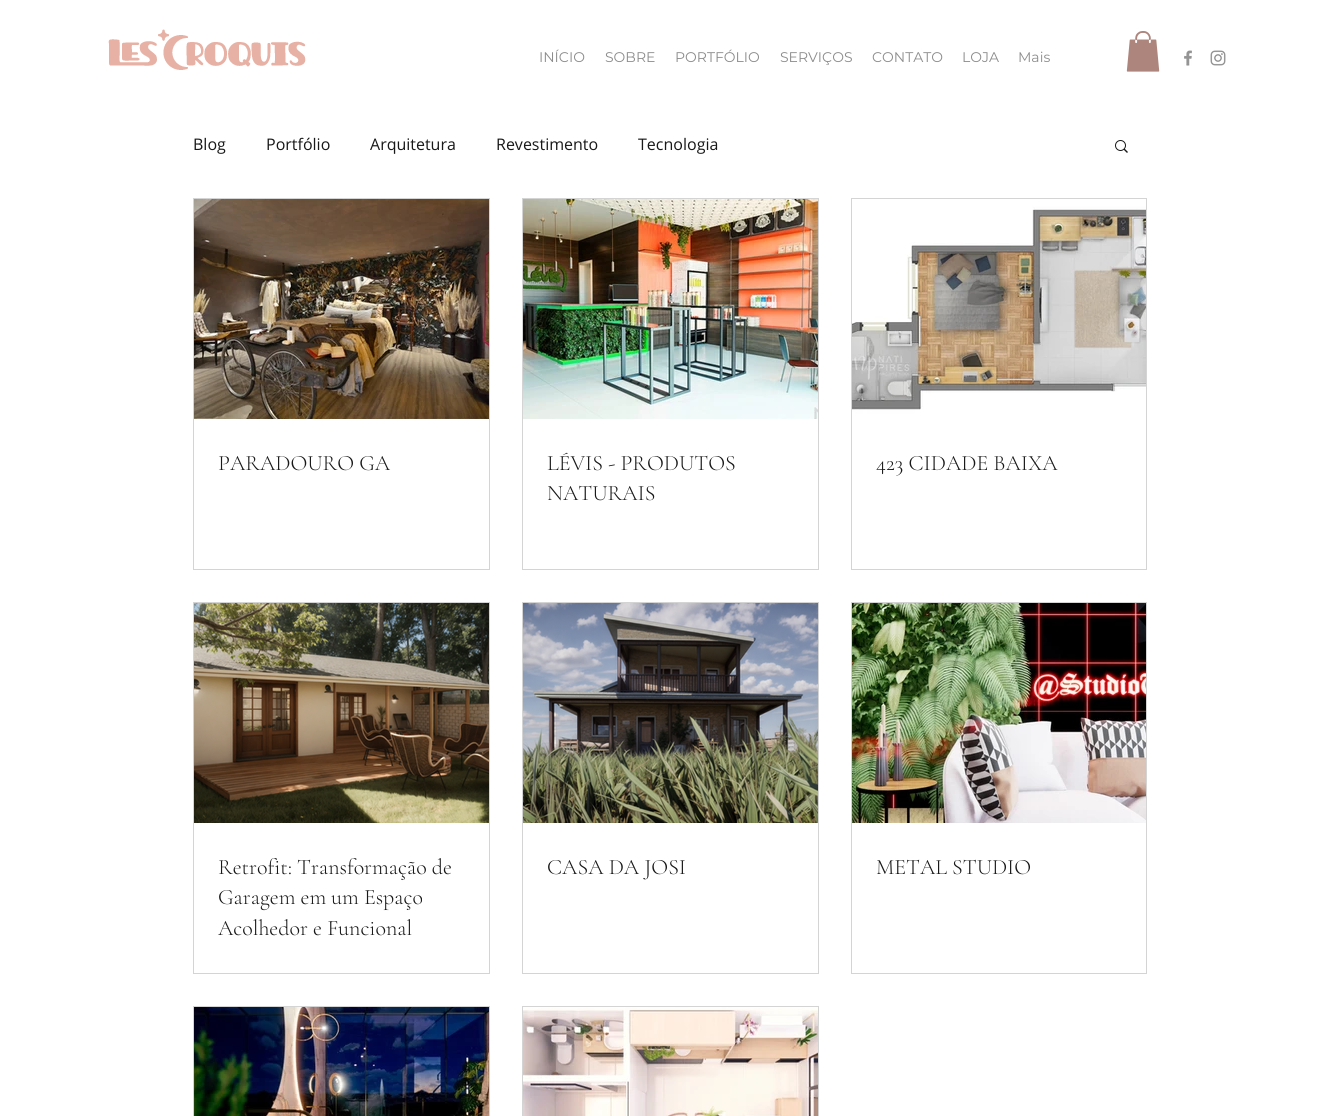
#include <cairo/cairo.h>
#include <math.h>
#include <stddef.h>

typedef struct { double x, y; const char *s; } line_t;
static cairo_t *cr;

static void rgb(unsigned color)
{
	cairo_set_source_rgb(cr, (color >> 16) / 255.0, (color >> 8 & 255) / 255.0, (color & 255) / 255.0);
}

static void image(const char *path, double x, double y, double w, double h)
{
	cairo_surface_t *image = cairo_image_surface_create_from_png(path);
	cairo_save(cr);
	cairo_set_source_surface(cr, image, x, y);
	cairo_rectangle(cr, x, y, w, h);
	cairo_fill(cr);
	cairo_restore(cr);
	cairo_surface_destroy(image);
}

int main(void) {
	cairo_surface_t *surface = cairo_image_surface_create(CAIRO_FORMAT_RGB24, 1340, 1116);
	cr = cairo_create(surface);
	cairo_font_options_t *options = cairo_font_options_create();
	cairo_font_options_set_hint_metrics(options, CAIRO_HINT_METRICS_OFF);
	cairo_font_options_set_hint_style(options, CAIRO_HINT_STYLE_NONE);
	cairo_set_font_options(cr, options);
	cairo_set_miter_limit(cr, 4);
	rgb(0xffffff);
	cairo_paint(cr);
	image("img/1.png", 108, 29, 198, 41);
	image("img/2.png", 1184, 50, 8, 16);
	image("img/3.png", 1210, 50, 16, 16);
	image("img/4.png", 1126, 31, 34, 41);
	image("img/5.png", 1115, 140, 13, 13);
	cairo_rectangle(cr, 193.5, 198.5, 296, 371);
	rgb(0xd4d4d4);
	cairo_set_line_width(cr, 1);
	cairo_stroke(cr);
	image("img/6.png", 194, 199, 295, 220);
	cairo_rectangle(cr, 522.5, 198.5, 296, 371);
	cairo_stroke(cr);
	image("img/7.png", 523, 199, 295, 220);
	cairo_rectangle(cr, 851.5, 198.5, 295, 371);
	cairo_stroke(cr);
	image("img/8.png", 852, 199, 294, 221);
	cairo_rectangle(cr, 193.5, 602.5, 296, 371);
	cairo_stroke(cr);
	image("img/9.png", 194, 603, 295, 220);
	cairo_rectangle(cr, 522.5, 602.5, 296, 371);
	cairo_stroke(cr);
	image("img/10.png", 523, 603, 295, 220);
	cairo_rectangle(cr, 851.5, 602.5, 295, 371);
	cairo_stroke(cr);
	image("img/11.png", 852, 603, 294, 220);
	cairo_rectangle(cr, 193.5, 1006.5, 296, 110);
	cairo_stroke(cr);
	image("img/12.png", 194, 1007, 295, 109);
	cairo_rectangle(cr, 522.5, 1006.5, 296, 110);
	cairo_stroke(cr);
	image("img/13.png", 523, 1007, 295, 109);
	cairo_select_font_face(cr, "Montserrat", CAIRO_FONT_SLANT_NORMAL, CAIRO_FONT_WEIGHT_NORMAL);
	cairo_set_font_size(cr, 14);
	rgb(0x8c8c8c);
	{
		static const line_t items[] = {
			{539, 62, "INÍCIO"},
			{605, 62, "SOBRE"},
			{675, 62, "PORTFÓLIO"},
			{780, 62, "SERVIÇOS"},
			{872, 62, "CONTATO"},
			{962, 62, "LOJA"},
			{1018, 62, "Mais"},
		};
		for (size_t i = 0; i < sizeof items / sizeof *items; i++) {
			cairo_move_to(cr, items[i].x, items[i].y);
			cairo_show_text(cr, items[i].s);
		}
	}
	cairo_select_font_face(cr, "Open Sans", CAIRO_FONT_SLANT_NORMAL, CAIRO_FONT_WEIGHT_NORMAL);
	cairo_set_font_size(cr, 16);
	rgb(0x181818);
	{
		static const line_t items[] = {
			{193, 150, "Blog"},
			{266, 150, "Portfólio"},
			{370, 150, "Arquitetura"},
			{496, 150, "Revestimento"},
			{638, 150, "Tecnologia"},
		};
		for (size_t i = 0; i < sizeof items / sizeof *items; i++) {
			cairo_move_to(cr, items[i].x, items[i].y);
			cairo_show_text(cr, items[i].s);
		}
	}
	cairo_select_font_face(cr, "Cormorant Garamond Light", CAIRO_FONT_SLANT_NORMAL, CAIRO_FONT_WEIGHT_NORMAL);
	cairo_set_font_size(cr, 22);
	{
		static const line_t items[] = {
			{218, 470, "PARADOURO GA"},
			{547, 470, "LÉVIS - PRODUTOS"},
			{547, 500, "NATURAIS"},
			{876, 470, "423 CIDADE BAIXA"},
			{218, 874, "Retrofit: Transformação de"},
			{218, 904, "Garagem em um Espaço"},
			{218, 935, "Acolhedor e Funcional"},
			{547, 874, "CASA DA JOSI"},
			{876, 874, "METAL STUDIO"},
		};
		for (size_t i = 0; i < sizeof items / sizeof *items; i++) {
			cairo_move_to(cr, items[i].x, items[i].y);
			cairo_show_text(cr, items[i].s);
		}
	}
	cairo_surface_write_to_png(surface, "page.png");
	cairo_font_options_destroy(options);
	cairo_destroy(cr);
	cairo_surface_destroy(surface);
	return 0;
}
